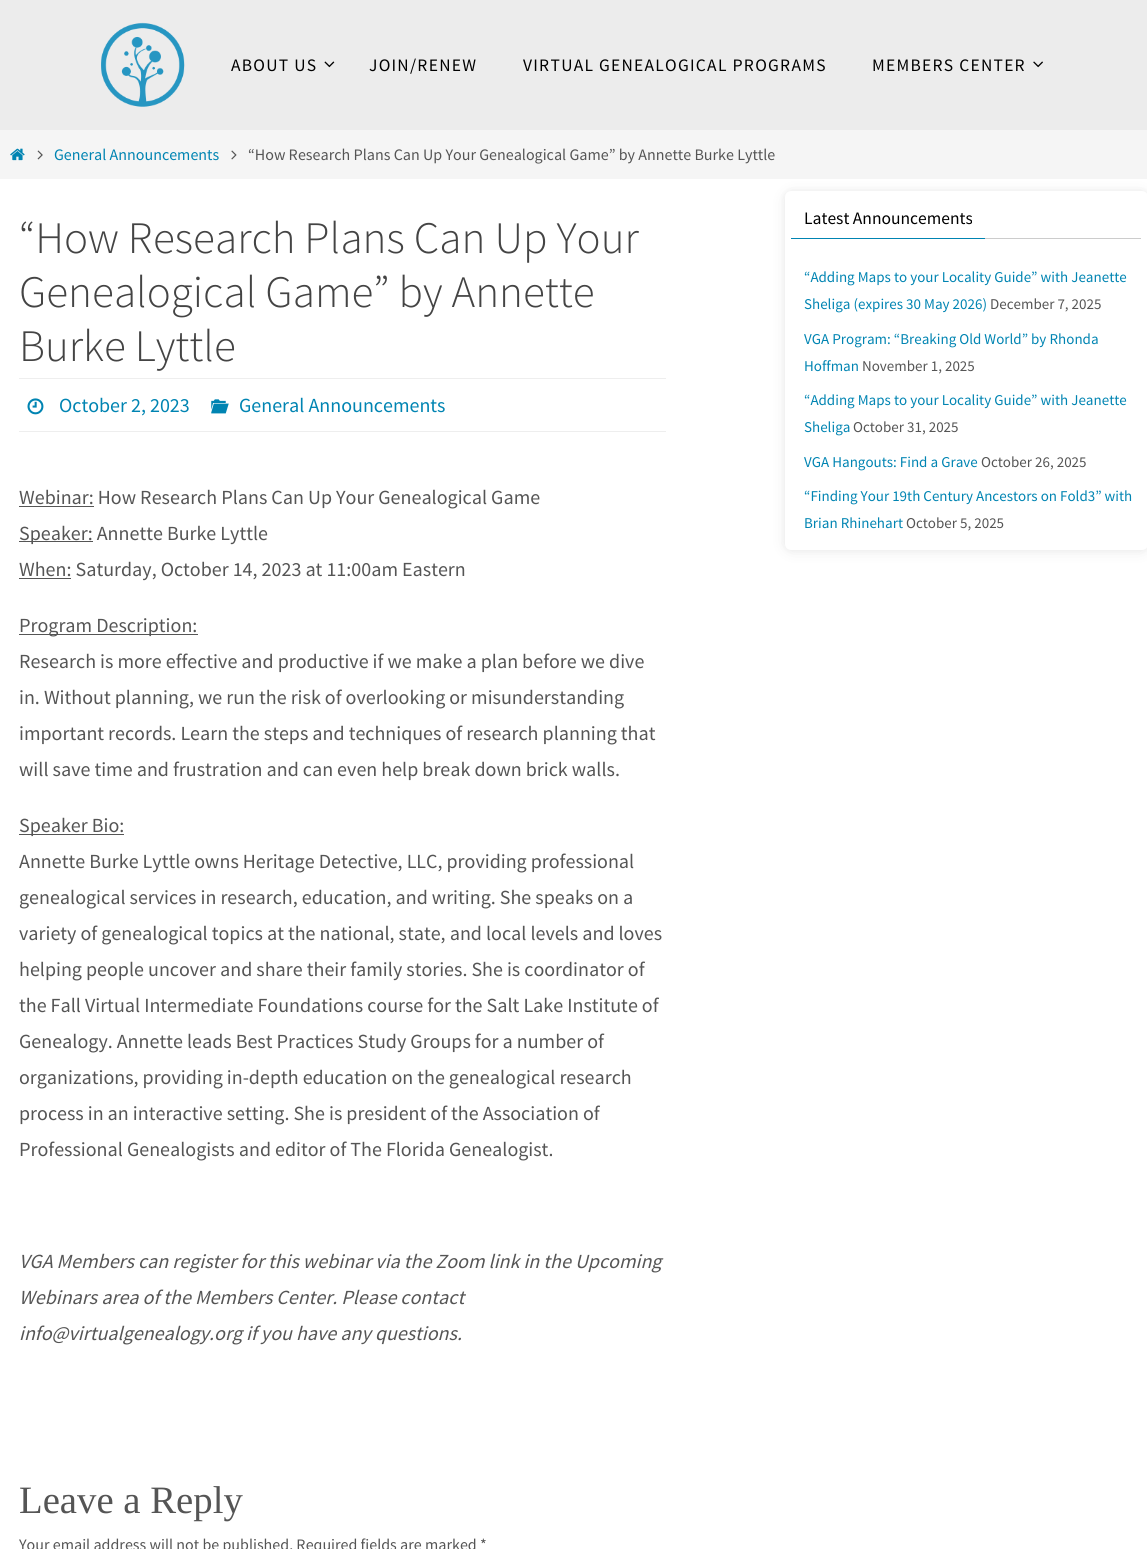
#include <cairo/cairo.h>
#include <math.h>
#include <stddef.h>

typedef struct { double x, y; const char *s; } line_t;
typedef struct { double x, y, w, h; unsigned color; } box_t;
static cairo_t *cr;

static void rgb(unsigned color)
{
	cairo_set_source_rgb(cr, (color >> 16) / 255.0, (color >> 8 & 255) / 255.0, (color & 255) / 255.0);
}

static void tracked(double x, double y, const char *s, double letter, double word)
{
	cairo_move_to(cr, x, y);
	while (*s) {
		char ch[5] = {0};
		int n = 0;
		do ch[n++] = *s++; while ((*s & 0xC0) == 0x80);
		cairo_show_text(cr, ch);
		cairo_rel_move_to(cr, letter + word * (*ch == ' '), 0);
	}
}

static void rrect(double x, double y, double w, double h, double r)
{
	cairo_new_sub_path(cr);
	cairo_arc(cr, x + w - r, y + h - r, r, 0, M_PI / 2);
	cairo_arc(cr, x + r, y + h - r, r, M_PI / 2, M_PI);
	cairo_arc(cr, x + r, y + r, r, M_PI, 1.5 * M_PI);
	cairo_arc(cr, x + w - r, y + r, r, 1.5 * M_PI, 2 * M_PI);
	cairo_close_path(cr);
}

static void soft_shadow(double x, double y, double w, double h, double r, double blur, double alpha)
{
	cairo_push_group_with_content(cr, CAIRO_CONTENT_ALPHA);
	cairo_set_operator(cr, CAIRO_OPERATOR_SOURCE);
	for (int i = 15; i >= -15 && fmin(w, h) + blur * i / 3 > 0; i -= 2) {
		double e = blur * i / 6;
		cairo_set_source_rgba(cr, 0, 0, 0, alpha * erfc((i - 1) / 8.5) / 2);
		rrect(x - e, y - e, w + 2 * e, h + 2 * e, fmax(0, fmin(r + e + blur * .6, fmin(w, h) / 2 + e)));
		cairo_fill(cr);
	}
	cairo_pattern_t *soft = cairo_pop_group(cr);
	cairo_mask(cr, soft);
	cairo_pattern_destroy(soft);
}

static void image(const char *path, double x, double y, double w, double h)
{
	cairo_surface_t *image = cairo_image_surface_create_from_png(path);
	cairo_save(cr);
	cairo_set_source_surface(cr, image, x, y);
	cairo_rectangle(cr, x, y, w, h);
	cairo_fill(cr);
	cairo_restore(cr);
	cairo_surface_destroy(image);
}

int main(void) {
	cairo_surface_t *surface = cairo_image_surface_create(CAIRO_FORMAT_RGB24, 1147, 1549);
	cr = cairo_create(surface);
	cairo_font_options_t *options = cairo_font_options_create();
	cairo_font_options_set_hint_metrics(options, CAIRO_HINT_METRICS_OFF);
	cairo_font_options_set_hint_style(options, CAIRO_HINT_STYLE_NONE);
	cairo_set_font_options(cr, options);
	cairo_set_miter_limit(cr, 4);
	rgb(0xffffff);
	cairo_paint(cr);
	rgb(0xececec);
	cairo_rectangle(cr, 0, 0, 1147, 130);
	cairo_fill(cr);
	image("img/1.png", 101, 22, 84, 85);
	image("img/2.png", 324, 61, 11, 7);
	image("img/3.png", 1033, 61, 10, 7);
	rgb(0x000000);
	soft_shadow(785, 193, 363, 358, 6, 8, 0.07);
	rgb(0xf5f5f5);
	cairo_rectangle(cr, 0, 130, 1147, 49);
	cairo_fill(cr);
	image("img/4.png", 10, 148, 15, 13);
	image("img/5.png", 37, 150, 6, 10);
	image("img/6.png", 231, 150, 6, 10);
	rgb(0xeeeeee);
	cairo_rectangle(cr, 19, 378, 647, 1);
	cairo_fill(cr);
	cairo_rectangle(cr, 19, 431, 647, 1);
	cairo_fill(cr);
	image("img/7.png", 27, 398, 17, 17);
	image("img/8.png", 211, 399, 18, 15);
	{
		static const box_t items[] = {
			{19, 506, 75, 1, 0x555555},
			{19, 541, 74, 1, 0x555555},
			{19, 578, 52, 1, 0x555555},
			{19, 634, 179, 1, 0x555555},
			{19, 834, 105, 1, 0x555555},
		};
		for (size_t i = 0; i < sizeof items / sizeof *items; i++) {
			rgb(items[i].color);
			cairo_rectangle(cr, items[i].x, items[i].y, items[i].w, items[i].h);
			cairo_fill(cr);
		}
	}
	rgb(0x000000);
	soft_shadow(785, 191, 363, 359, 6, 3, 0.05);
	rgb(0xffffff);
	rrect(785, 191, 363, 359, 6);
	cairo_fill(cr);
	rgb(0xcccccc);
	cairo_rectangle(cr, 985, 238, 156, 1);
	cairo_fill(cr);
	rgb(0x0084b2);
	cairo_rectangle(cr, 791, 238, 194, 1);
	cairo_fill(cr);
	cairo_select_font_face(cr, "Source Sans Pro", CAIRO_FONT_SLANT_NORMAL, CAIRO_FONT_WEIGHT_NORMAL);
	cairo_set_font_size(cr, 17.5);
	rgb(0x000000);
	{
		static const line_t items[] = {
			{231, 71, "ABOUT US"},
			{369, 71, "JOIN/RENEW"},
			{523, 71, "VIRTUAL GENEALOGICAL PROGRAMS"},
			{872, 71, "MEMBERS CENTER"},
		};
		for (size_t i = 0; i < sizeof items / sizeof *items; i++) {
			tracked(items[i].x, items[i].y, items[i].s, 1.25, 0);
		}
	}
	cairo_set_font_size(cr, 16);
	rgb(0x0084b2);
	cairo_move_to(cr, 54, 160);
	cairo_show_text(cr, "General Announcements");
	rgb(0x555555);
	cairo_move_to(cr, 248, 160);
	cairo_show_text(cr, "“How Research Plans Can Up Your Genealogical Game” by Annette Burke Lyttle");
	cairo_select_font_face(cr, "Source Sans Pro Light", CAIRO_FONT_SLANT_NORMAL, CAIRO_FONT_WEIGHT_NORMAL);
	cairo_set_font_size(cr, 45);
	rgb(0x444444);
	{
		static const line_t items[] = {
			{19, 253, "“How Research Plans Can Up Your"},
			{19, 307, "Genealogical Game” by Annette"},
			{19, 361, "Burke Lyttle"},
		};
		for (size_t i = 0; i < sizeof items / sizeof *items; i++) {
			cairo_move_to(cr, items[i].x, items[i].y);
			cairo_show_text(cr, items[i].s);
		}
	}
	cairo_select_font_face(cr, "Source Sans Pro", CAIRO_FONT_SLANT_NORMAL, CAIRO_FONT_WEIGHT_NORMAL);
	cairo_set_font_size(cr, 20);
	rgb(0x0084b2);
	cairo_move_to(cr, 59, 412);
	cairo_show_text(cr, "October 2, 2023");
	cairo_move_to(cr, 239, 412);
	cairo_show_text(cr, "General Announcements");
	rgb(0x555555);
	{
		static const line_t items[] = {
			{19, 504, "Webinar: How Research Plans Can Up Your Genealogical Game"},
			{19, 540, "Speaker: Annette Burke Lyttle"},
			{19, 576, "When: Saturday, October 14, 2023 at 11:00am Eastern"},
			{19, 632, "Program Description:"},
			{19, 668, "Research is more effective and productive if we make a plan before we dive"},
			{19, 704, "in. Without planning, we run the risk of overlooking or misunderstanding"},
			{19, 740, "important records. Learn the steps and techniques of research planning that"},
			{19, 776, "will save time and frustration and can even help break down brick walls."},
			{19, 832, "Speaker Bio:"},
			{19, 868, "Annette Burke Lyttle owns Heritage Detective, LLC, providing professional"},
			{19, 904, "genealogical services in research, education, and writing. She speaks on a"},
			{19, 940, "variety of genealogical topics at the national, state, and local levels and loves"},
			{19, 976, "helping people uncover and share their family stories. She is coordinator of"},
			{19, 1012, "the Fall Virtual Intermediate Foundations course for the Salt Lake Institute of"},
			{19, 1048, "Genealogy. Annette leads Best Practices Study Groups for a number of"},
			{19, 1084, "organizations, providing in-depth education on the genealogical research"},
			{19, 1120, "process in an interactive setting. She is president of the Association of"},
			{19, 1156, "Professional Genealogists and editor of The Florida Genealogist."},
		};
		for (size_t i = 0; i < sizeof items / sizeof *items; i++) {
			cairo_move_to(cr, items[i].x, items[i].y);
			cairo_show_text(cr, items[i].s);
		}
	}
	cairo_select_font_face(cr, "Source Sans Pro", CAIRO_FONT_SLANT_ITALIC, CAIRO_FONT_WEIGHT_NORMAL);
	{
		static const line_t items[] = {
			{19, 1268, "VGA Members can register for this webinar via the Zoom link in the Upcoming"},
			{19, 1304, "Webinars area of the Members Center. Please contact"},
			{19, 1340, "info@virtualgenealogy.org if you have any questions."},
		};
		for (size_t i = 0; i < sizeof items / sizeof *items; i++) {
			cairo_move_to(cr, items[i].x, items[i].y);
			cairo_show_text(cr, items[i].s);
		}
	}
	cairo_select_font_face(cr, "Liberation Serif", CAIRO_FONT_SLANT_NORMAL, CAIRO_FONT_WEIGHT_NORMAL);
	cairo_set_font_size(cr, 38.75);
	cairo_move_to(cr, 19, 1513);
	cairo_show_text(cr, "Leave a Reply");
	cairo_select_font_face(cr, "Source Sans Pro", CAIRO_FONT_SLANT_NORMAL, CAIRO_FONT_WEIGHT_NORMAL);
	cairo_set_font_size(cr, 16);
	cairo_move_to(cr, 19, 1550);
	cairo_show_text(cr, "Your email address will not be published. Required fields are marked *");
	cairo_set_font_size(cr, 17.5);
	rgb(0x000000);
	cairo_move_to(cr, 804, 224);
	cairo_show_text(cr, "Latest Announcements");
	cairo_set_font_size(cr, 15);
	rgb(0x0084b2);
	cairo_move_to(cr, 804, 282);
	cairo_show_text(cr, "“Adding Maps to your Locality Guide” with Jeanette");
	cairo_move_to(cr, 804, 309);
	cairo_show_text(cr, "Sheliga (expires 30 May 2026)");
	rgb(0x555555);
	cairo_move_to(cr, 990, 309);
	cairo_show_text(cr, "December 7, 2025");
	rgb(0x0084b2);
	cairo_move_to(cr, 804, 344);
	cairo_show_text(cr, "VGA Program: “Breaking Old World” by Rhonda");
	cairo_move_to(cr, 804, 371);
	cairo_show_text(cr, "Hoffman");
	rgb(0x555555);
	cairo_move_to(cr, 862, 371);
	cairo_show_text(cr, "November 1, 2025");
	rgb(0x0084b2);
	cairo_move_to(cr, 804, 405);
	cairo_show_text(cr, "“Adding Maps to your Locality Guide” with Jeanette");
	cairo_move_to(cr, 804, 432);
	cairo_show_text(cr, "Sheliga");
	rgb(0x555555);
	cairo_move_to(cr, 853, 432);
	cairo_show_text(cr, "October 31, 2025");
	rgb(0x0084b2);
	cairo_move_to(cr, 804, 467);
	cairo_show_text(cr, "VGA Hangouts: Find a Grave");
	rgb(0x555555);
	cairo_move_to(cr, 981, 467);
	cairo_show_text(cr, "October 26, 2025");
	rgb(0x0084b2);
	cairo_move_to(cr, 804, 501);
	cairo_show_text(cr, "“Finding Your 19th Century Ancestors on Fold3” with");
	cairo_move_to(cr, 804, 528);
	cairo_show_text(cr, "Brian Rhinehart");
	rgb(0x555555);
	cairo_move_to(cr, 906, 528);
	cairo_show_text(cr, "October 5, 2025");
	cairo_surface_write_to_png(surface, "page.png");
	cairo_font_options_destroy(options);
	cairo_destroy(cr);
	cairo_surface_destroy(surface);
	return 0;
}
